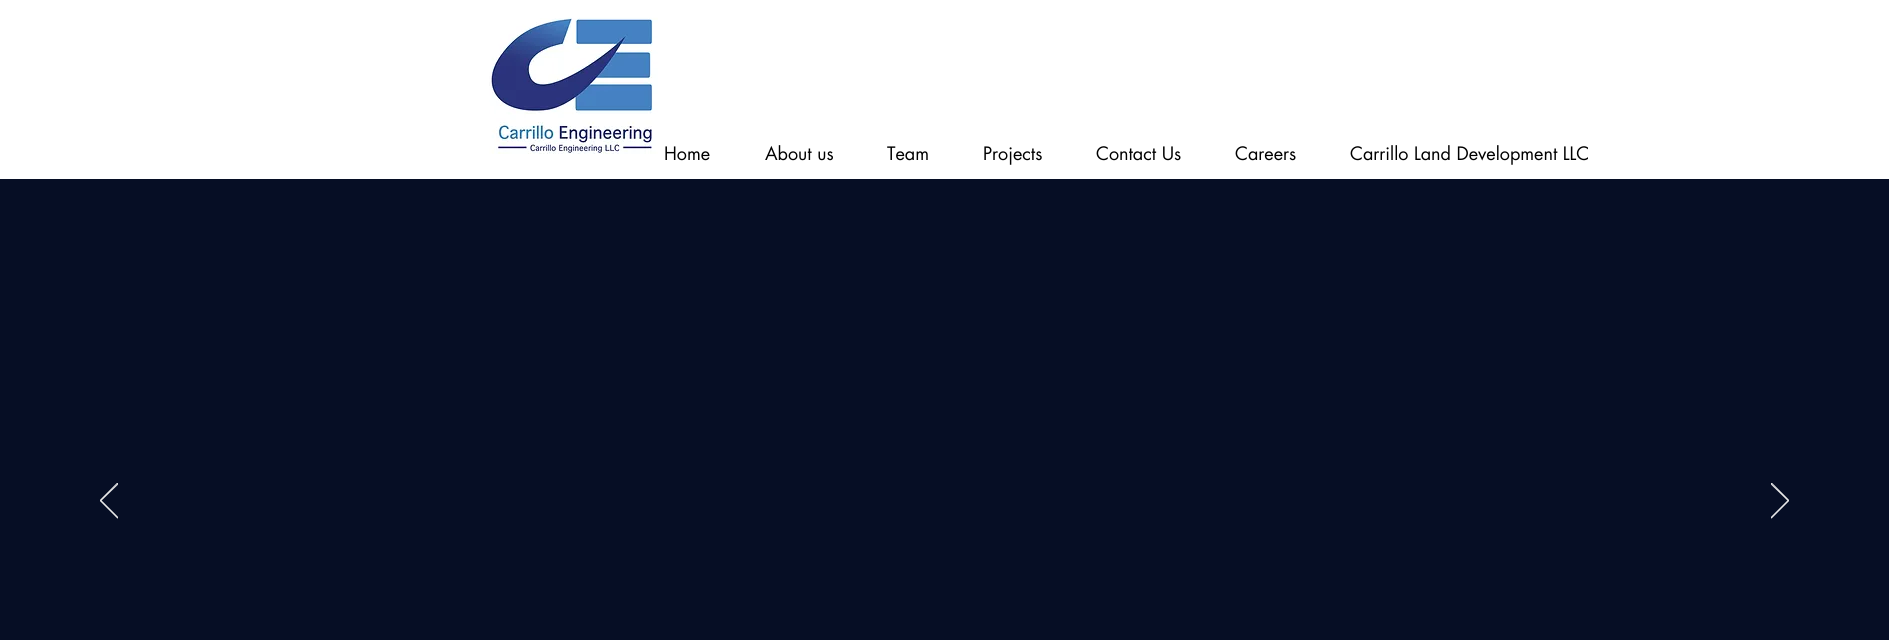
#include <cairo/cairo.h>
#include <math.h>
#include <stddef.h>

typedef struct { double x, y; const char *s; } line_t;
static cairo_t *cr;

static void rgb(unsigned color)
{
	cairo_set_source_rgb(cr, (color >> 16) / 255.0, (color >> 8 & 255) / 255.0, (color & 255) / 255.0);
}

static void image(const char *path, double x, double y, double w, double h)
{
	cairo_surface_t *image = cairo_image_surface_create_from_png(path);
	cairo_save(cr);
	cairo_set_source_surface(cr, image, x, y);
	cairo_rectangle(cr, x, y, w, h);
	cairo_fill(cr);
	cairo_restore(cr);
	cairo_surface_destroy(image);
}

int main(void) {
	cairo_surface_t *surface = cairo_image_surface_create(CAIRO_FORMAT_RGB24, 1889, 640);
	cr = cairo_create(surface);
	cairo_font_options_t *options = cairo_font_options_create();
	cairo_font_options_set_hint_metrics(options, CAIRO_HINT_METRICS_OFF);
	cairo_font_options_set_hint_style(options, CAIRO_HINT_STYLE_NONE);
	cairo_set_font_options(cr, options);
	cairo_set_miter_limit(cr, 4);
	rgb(0xffffff);
	cairo_paint(cr);
	image("img/1.png", 489, 17, 169, 137);
	rgb(0x060e25);
	cairo_rectangle(cr, 0, 179, 1889, 461);
	cairo_fill(cr);
	cairo_save(cr);
	cairo_rectangle(cr, 100, 483, 18, 36);
	cairo_clip(cr);
	cairo_new_path(cr);
	cairo_move_to(cr, 117.5, 518);
	cairo_line_to(cr, 100, 500.5);
	cairo_line_to(cr, 117.5, 483);
	cairo_line_to(cr, 118, 484);
	cairo_line_to(cr, 101, 500.5);
	cairo_line_to(cr, 118, 517.5);
	cairo_close_path(cr);
	rgb(0xe8e8e8);
	cairo_set_line_width(cr, 0.9);
	cairo_stroke(cr);
	cairo_restore(cr);
	cairo_save(cr);
	cairo_rectangle(cr, 1771, 483, 18, 36);
	cairo_clip(cr);
	cairo_new_path(cr);
	cairo_move_to(cr, 1771.5, 518);
	cairo_line_to(cr, 1789, 500.5);
	cairo_line_to(cr, 1771.5, 483);
	cairo_line_to(cr, 1771, 484);
	cairo_line_to(cr, 1788, 500.5);
	cairo_line_to(cr, 1771, 517.5);
	cairo_close_path(cr);
	rgb(0xe8e8e8);
	cairo_set_line_width(cr, 0.9);
	cairo_stroke(cr);
	cairo_restore(cr);
	cairo_select_font_face(cr, "futura", CAIRO_FONT_SLANT_NORMAL, CAIRO_FONT_WEIGHT_NORMAL);
	cairo_set_font_size(cr, 18);
	rgb(0x000000);
	{
		static const line_t items[] = {
			{664, 160, "Home"},
			{765, 160, "About us"},
			{887, 160, "Team"},
			{983, 160, "Projects"},
			{1096, 160, "Contact Us"},
			{1235, 160, "Careers"},
			{1350, 160, "Carrillo Land Development LLC"},
		};
		for (size_t i = 0; i < sizeof items / sizeof *items; i++) {
			cairo_move_to(cr, items[i].x, items[i].y);
			cairo_show_text(cr, items[i].s);
		}
	}
	cairo_surface_write_to_png(surface, "page.png");
	cairo_font_options_destroy(options);
	cairo_destroy(cr);
	cairo_surface_destroy(surface);
	return 0;
}
